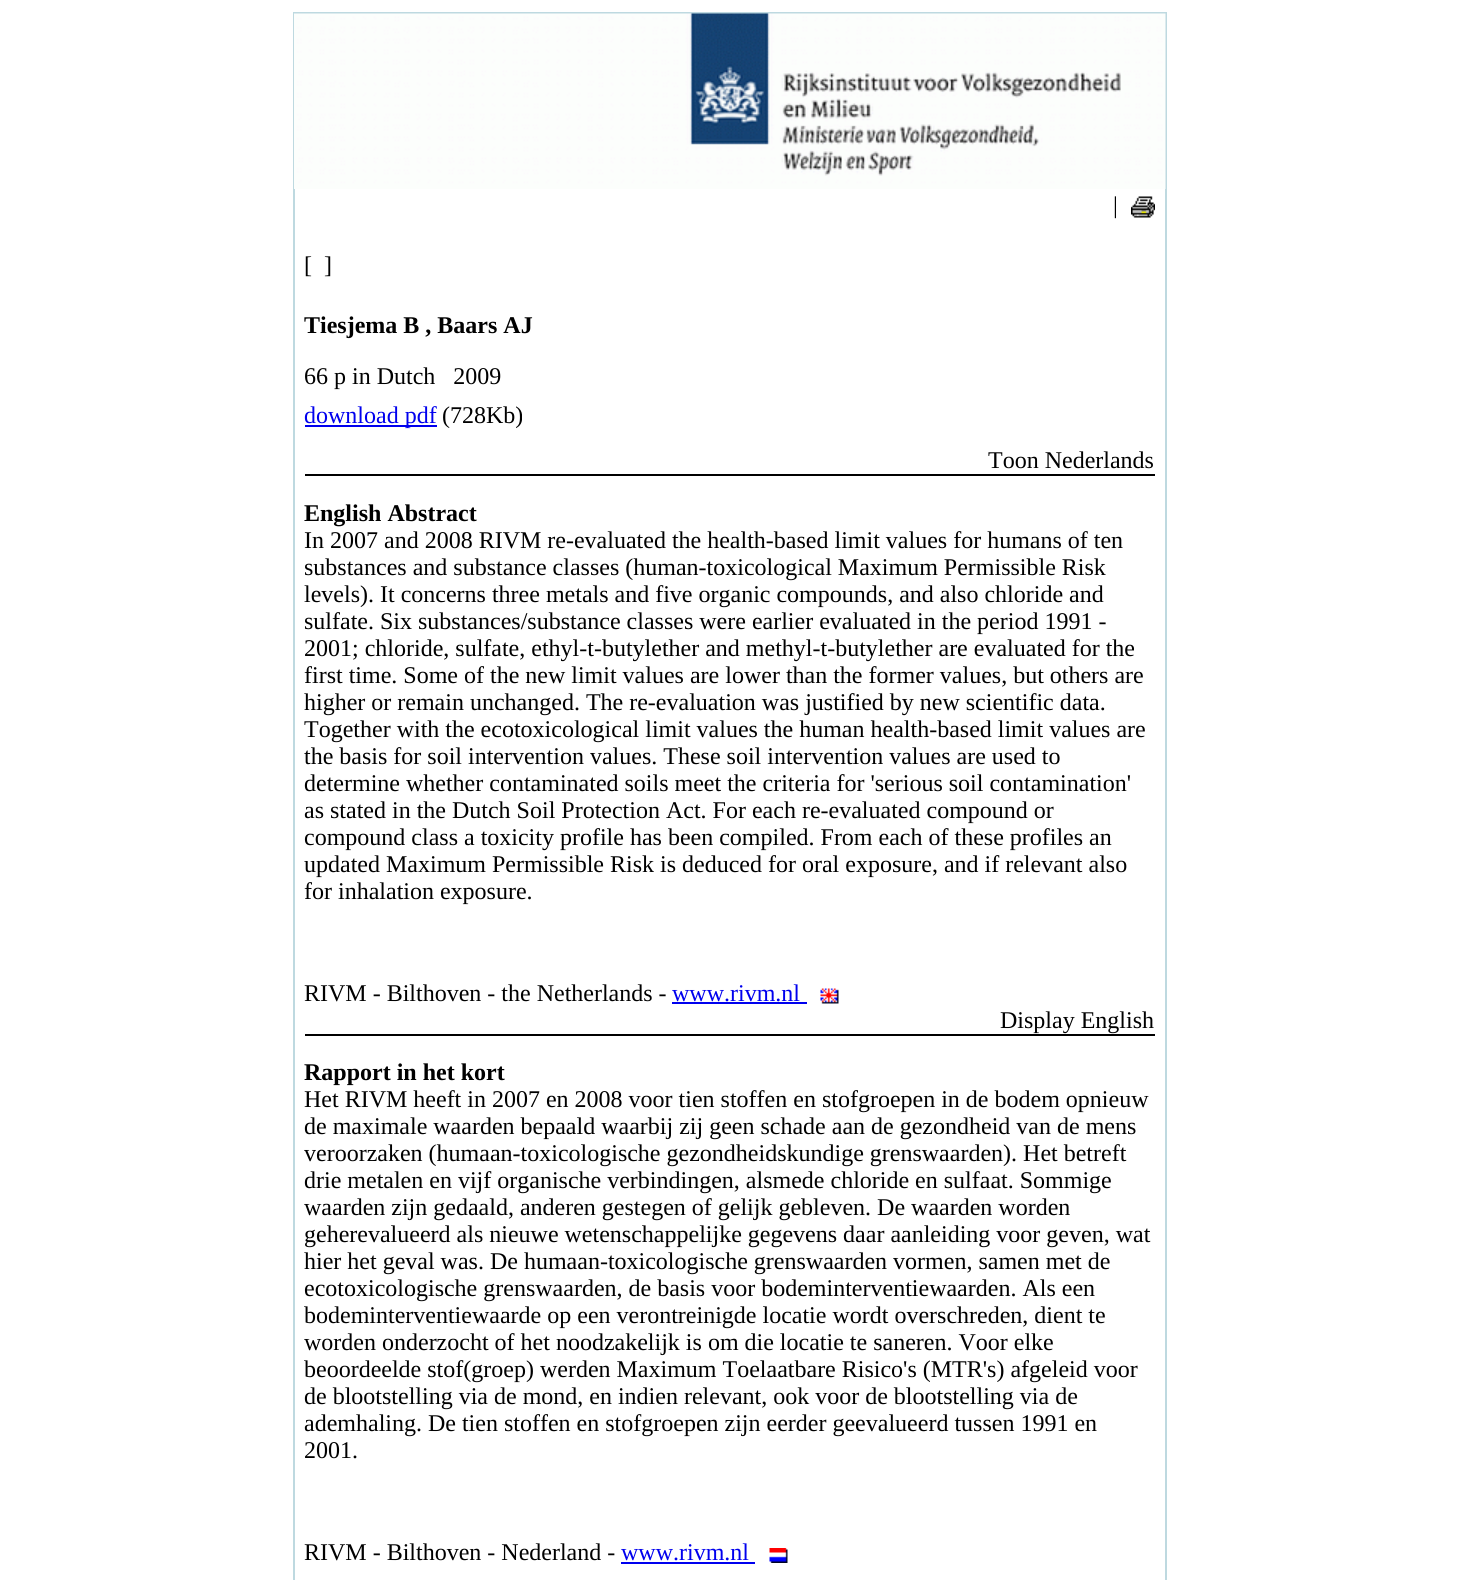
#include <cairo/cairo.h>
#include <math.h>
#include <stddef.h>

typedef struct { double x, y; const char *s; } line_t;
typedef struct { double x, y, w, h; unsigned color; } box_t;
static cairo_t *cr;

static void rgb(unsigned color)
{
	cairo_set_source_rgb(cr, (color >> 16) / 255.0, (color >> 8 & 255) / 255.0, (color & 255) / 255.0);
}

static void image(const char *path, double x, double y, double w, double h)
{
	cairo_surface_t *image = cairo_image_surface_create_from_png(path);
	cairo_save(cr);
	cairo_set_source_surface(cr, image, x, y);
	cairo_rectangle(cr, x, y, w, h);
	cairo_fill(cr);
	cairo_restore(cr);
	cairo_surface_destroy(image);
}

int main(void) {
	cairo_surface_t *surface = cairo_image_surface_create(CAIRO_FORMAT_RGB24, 1458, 1580);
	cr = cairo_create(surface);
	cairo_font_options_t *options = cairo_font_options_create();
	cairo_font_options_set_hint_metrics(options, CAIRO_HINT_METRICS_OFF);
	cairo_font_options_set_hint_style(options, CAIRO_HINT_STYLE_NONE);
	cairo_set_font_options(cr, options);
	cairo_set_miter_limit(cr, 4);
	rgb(0xffffff);
	cairo_paint(cr);
	cairo_rectangle(cr, 294, 13, 872, 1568);
	rgb(0xbed9e0);
	cairo_stroke(cr);
	image("img/1.png", 294, 13, 872, 176);
	image("img/2.png", 1131, 196, 24, 22);
	{
		static const box_t items[] = {
			{305, 425, 132, 2, 0x0000ee},
			{305, 474, 850, 2, 0x000000},
			{672, 1002, 135, 2, 0x0000ee},
		};
		for (size_t i = 0; i < sizeof items / sizeof *items; i++) {
			rgb(items[i].color);
			cairo_rectangle(cr, items[i].x, items[i].y, items[i].w, items[i].h);
			cairo_fill(cr);
		}
	}
	image("img/3.png", 820, 988, 19, 16);
	rgb(0x000000);
	cairo_rectangle(cr, 305, 1034, 850, 2);
	cairo_fill(cr);
	rgb(0x0000ee);
	cairo_rectangle(cr, 621, 1562, 134, 2);
	cairo_fill(cr);
	image("img/4.png", 769, 1548, 19, 15);
	cairo_select_font_face(cr, "Liberation Serif", CAIRO_FONT_SLANT_NORMAL, CAIRO_FONT_WEIGHT_NORMAL);
	cairo_set_font_size(cr, 24);
	rgb(0x000000);
	cairo_move_to(cr, 1113, 213);
	cairo_show_text(cr, "|");
	cairo_move_to(cr, 304, 273);
	cairo_show_text(cr, "[  ]");
	cairo_select_font_face(cr, "Liberation Serif", CAIRO_FONT_SLANT_NORMAL, CAIRO_FONT_WEIGHT_BOLD);
	cairo_move_to(cr, 304, 333);
	cairo_show_text(cr, "Tiesjema B , Baars AJ");
	cairo_select_font_face(cr, "Liberation Serif", CAIRO_FONT_SLANT_NORMAL, CAIRO_FONT_WEIGHT_NORMAL);
	cairo_move_to(cr, 304, 384);
	cairo_show_text(cr, "66 p in Dutch   2009");
	rgb(0x0000ee);
	cairo_move_to(cr, 304, 423);
	cairo_show_text(cr, "download pdf");
	rgb(0x000000);
	cairo_move_to(cr, 442, 423);
	cairo_show_text(cr, "(728Kb)");
	cairo_move_to(cr, 988, 468);
	cairo_show_text(cr, "Toon Nederlands");
	cairo_select_font_face(cr, "Liberation Serif", CAIRO_FONT_SLANT_NORMAL, CAIRO_FONT_WEIGHT_BOLD);
	cairo_move_to(cr, 304, 521);
	cairo_show_text(cr, "English Abstract");
	cairo_select_font_face(cr, "Liberation Serif", CAIRO_FONT_SLANT_NORMAL, CAIRO_FONT_WEIGHT_NORMAL);
	{
		static const line_t items[] = {
			{304, 548, "In 2007 and 2008 RIVM re-evaluated the health-based limit values for humans of ten"},
			{304, 575, "substances and substance classes (human-toxicological Maximum Permissible Risk"},
			{304, 602, "levels). It concerns three metals and five organic compounds, and also chloride and"},
			{304, 629, "sulfate. Six substances/substance classes were earlier evaluated in the period 1991 -"},
			{304, 656, "2001; chloride, sulfate, ethyl-t-butylether and methyl-t-butylether are evaluated for the"},
			{304, 683, "first time. Some of the new limit values are lower than the former values, but others are"},
			{304, 710, "higher or remain unchanged. The re-evaluation was justified by new scientific data."},
			{304, 737, "Together with the ecotoxicological limit values the human health-based limit values are"},
			{304, 764, "the basis for soil intervention values. These soil intervention values are used to"},
			{304, 791, "determine whether contaminated soils meet the criteria for 'serious soil contamination'"},
			{304, 818, "as stated in the Dutch Soil Protection Act. For each re-evaluated compound or"},
			{304, 845, "compound class a toxicity profile has been compiled. From each of these profiles an"},
			{304, 872, "updated Maximum Permissible Risk is deduced for oral exposure, and if relevant also"},
			{304, 899, "for inhalation exposure."},
			{304, 1001, "RIVM - Bilthoven - the Netherlands -"},
		};
		for (size_t i = 0; i < sizeof items / sizeof *items; i++) {
			cairo_move_to(cr, items[i].x, items[i].y);
			cairo_show_text(cr, items[i].s);
		}
	}
	rgb(0x0000ee);
	cairo_move_to(cr, 672, 1001);
	cairo_show_text(cr, "www.rivm.nl");
	rgb(0x000000);
	cairo_move_to(cr, 1000, 1028);
	cairo_show_text(cr, "Display English");
	cairo_select_font_face(cr, "Liberation Serif", CAIRO_FONT_SLANT_NORMAL, CAIRO_FONT_WEIGHT_BOLD);
	cairo_move_to(cr, 304, 1080);
	cairo_show_text(cr, "Rapport in het kort");
	cairo_select_font_face(cr, "Liberation Serif", CAIRO_FONT_SLANT_NORMAL, CAIRO_FONT_WEIGHT_NORMAL);
	{
		static const line_t items[] = {
			{304, 1107, "Het RIVM heeft in 2007 en 2008 voor tien stoffen en stofgroepen in de bodem opnieuw"},
			{304, 1134, "de maximale waarden bepaald waarbij zij geen schade aan de gezondheid van de mens"},
			{304, 1161, "veroorzaken (humaan-toxicologische gezondheidskundige grenswaarden). Het betreft"},
			{304, 1188, "drie metalen en vijf organische verbindingen, alsmede chloride en sulfaat. Sommige"},
			{304, 1215, "waarden zijn gedaald, anderen gestegen of gelijk gebleven. De waarden worden"},
			{304, 1242, "geherevalueerd als nieuwe wetenschappelijke gegevens daar aanleiding voor geven, wat"},
			{304, 1269, "hier het geval was. De humaan-toxicologische grenswaarden vormen, samen met de"},
			{304, 1296, "ecotoxicologische grenswaarden, de basis voor bodeminterventiewaarden. Als een"},
			{304, 1323, "bodeminterventiewaarde op een verontreinigde locatie wordt overschreden, dient te"},
			{304, 1350, "worden onderzocht of het noodzakelijk is om die locatie te saneren. Voor elke"},
			{304, 1377, "beoordeelde stof(groep) werden Maximum Toelaatbare Risico's (MTR's) afgeleid voor"},
			{304, 1404, "de blootstelling via de mond, en indien relevant, ook voor de blootstelling via de"},
			{304, 1431, "ademhaling. De tien stoffen en stofgroepen zijn eerder geevalueerd tussen 1991 en"},
			{304, 1458, "2001."},
			{304, 1560, "RIVM - Bilthoven - Nederland -"},
		};
		for (size_t i = 0; i < sizeof items / sizeof *items; i++) {
			cairo_move_to(cr, items[i].x, items[i].y);
			cairo_show_text(cr, items[i].s);
		}
	}
	rgb(0x0000ee);
	cairo_move_to(cr, 621, 1560);
	cairo_show_text(cr, "www.rivm.nl");
	cairo_surface_write_to_png(surface, "page.png");
	cairo_font_options_destroy(options);
	cairo_destroy(cr);
	cairo_surface_destroy(surface);
	return 0;
}
